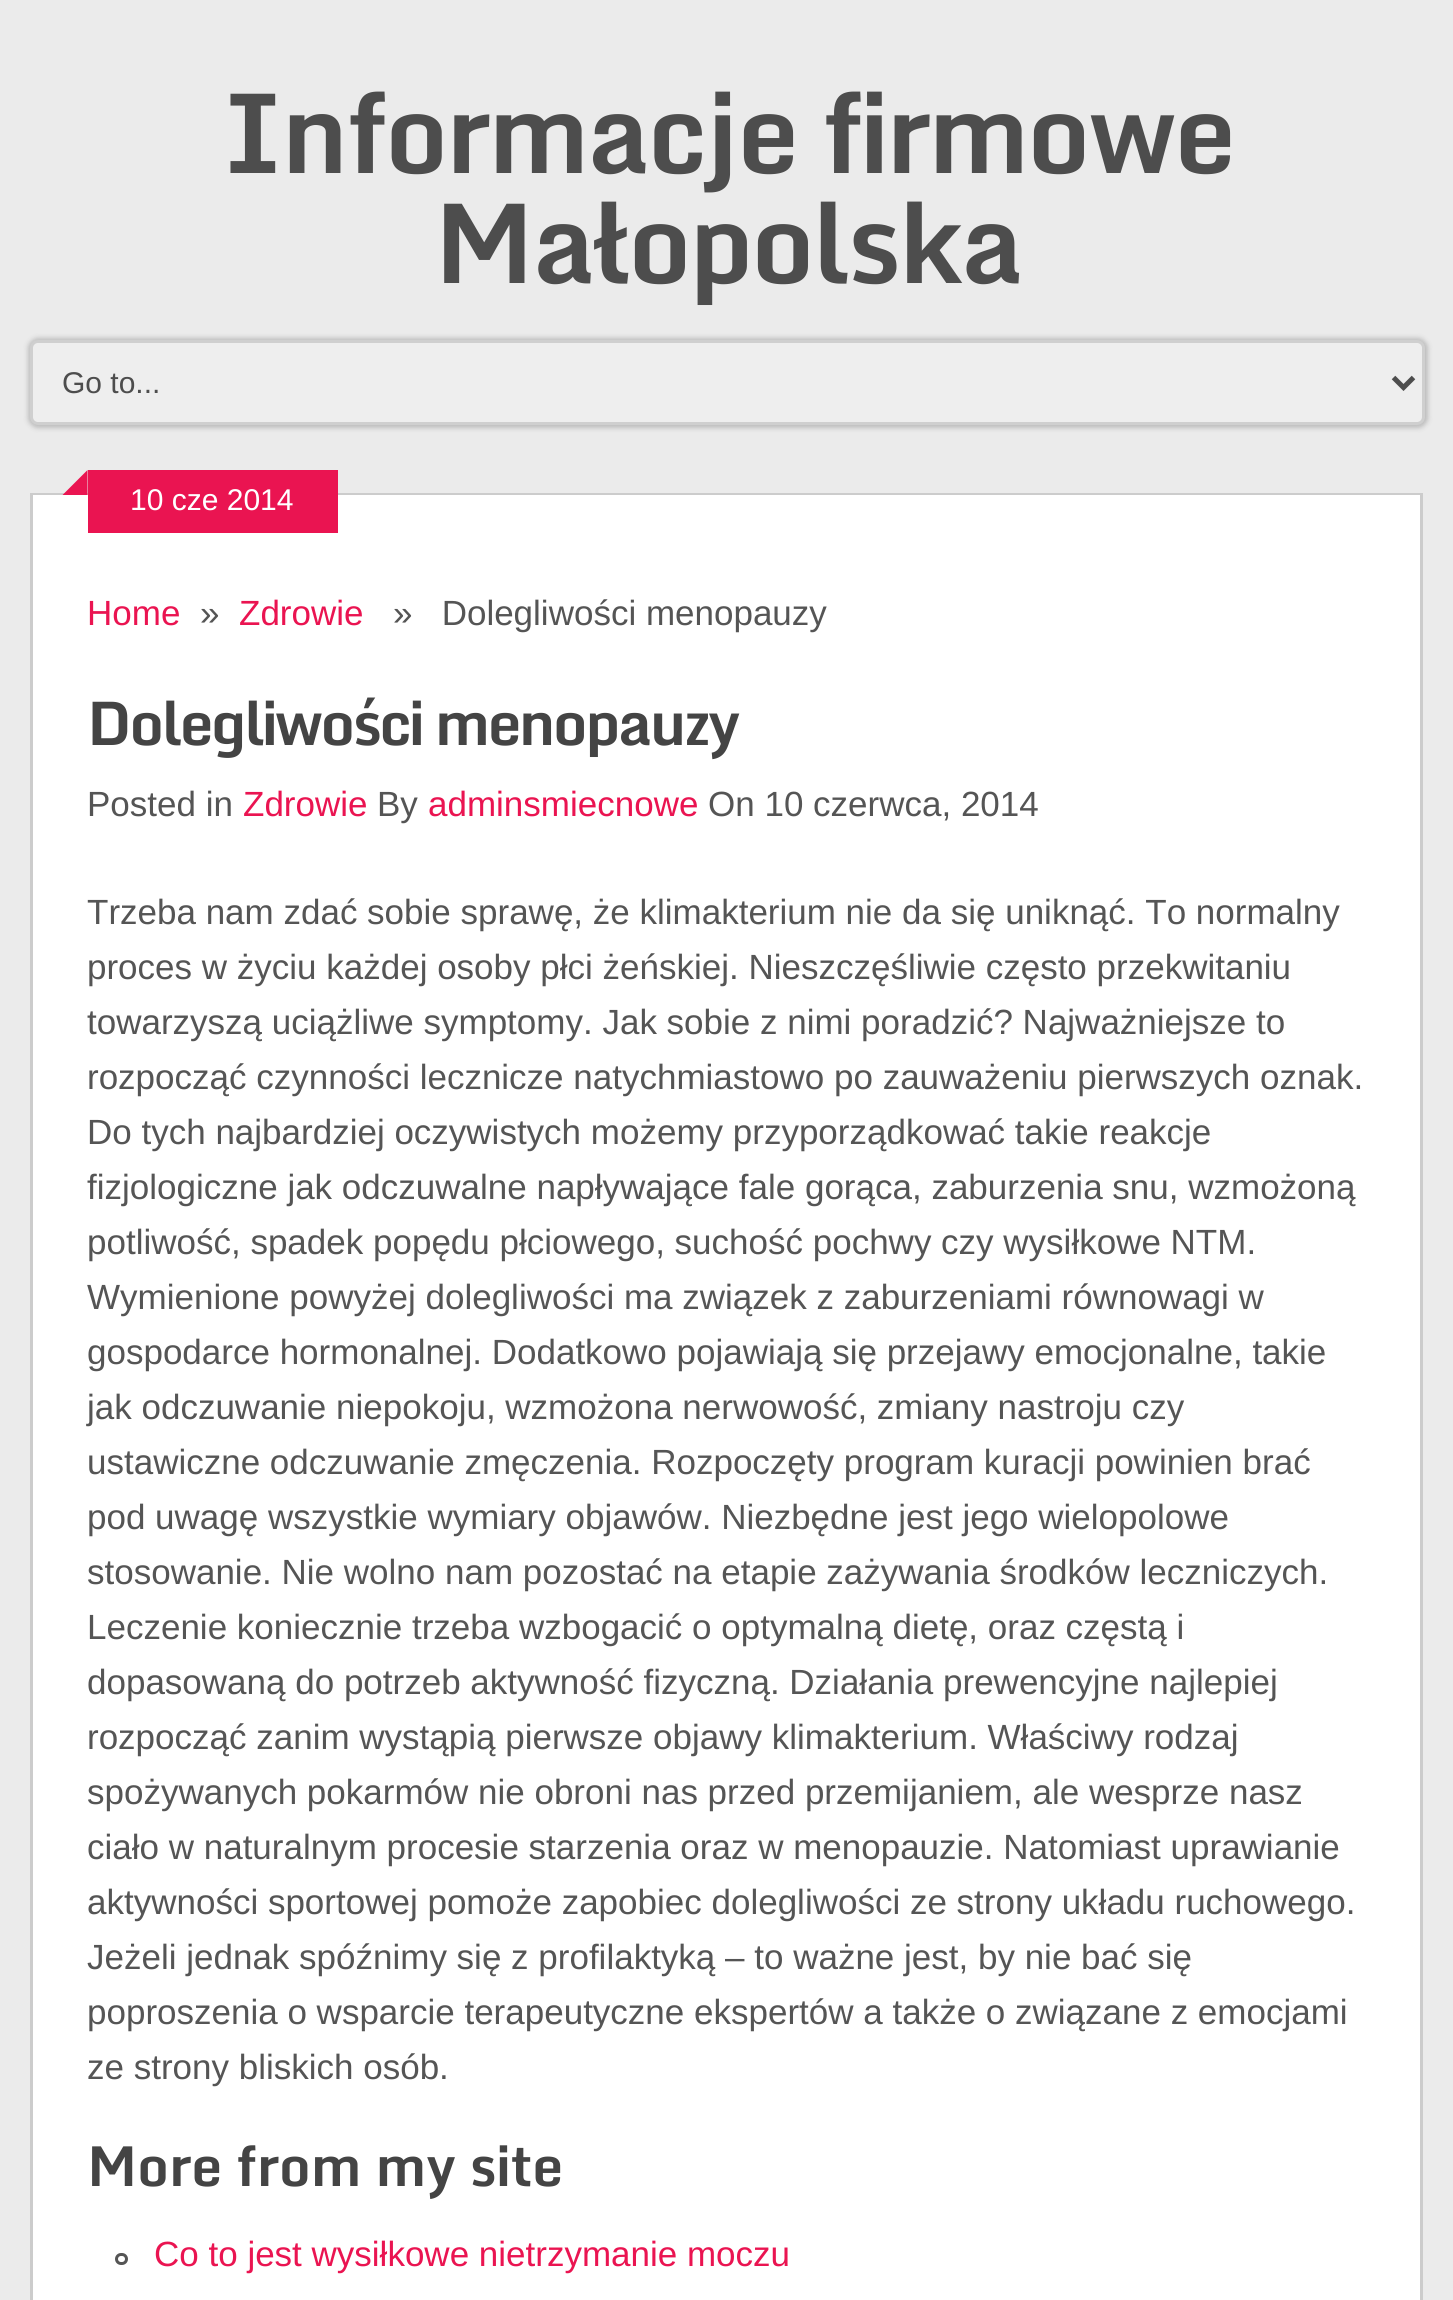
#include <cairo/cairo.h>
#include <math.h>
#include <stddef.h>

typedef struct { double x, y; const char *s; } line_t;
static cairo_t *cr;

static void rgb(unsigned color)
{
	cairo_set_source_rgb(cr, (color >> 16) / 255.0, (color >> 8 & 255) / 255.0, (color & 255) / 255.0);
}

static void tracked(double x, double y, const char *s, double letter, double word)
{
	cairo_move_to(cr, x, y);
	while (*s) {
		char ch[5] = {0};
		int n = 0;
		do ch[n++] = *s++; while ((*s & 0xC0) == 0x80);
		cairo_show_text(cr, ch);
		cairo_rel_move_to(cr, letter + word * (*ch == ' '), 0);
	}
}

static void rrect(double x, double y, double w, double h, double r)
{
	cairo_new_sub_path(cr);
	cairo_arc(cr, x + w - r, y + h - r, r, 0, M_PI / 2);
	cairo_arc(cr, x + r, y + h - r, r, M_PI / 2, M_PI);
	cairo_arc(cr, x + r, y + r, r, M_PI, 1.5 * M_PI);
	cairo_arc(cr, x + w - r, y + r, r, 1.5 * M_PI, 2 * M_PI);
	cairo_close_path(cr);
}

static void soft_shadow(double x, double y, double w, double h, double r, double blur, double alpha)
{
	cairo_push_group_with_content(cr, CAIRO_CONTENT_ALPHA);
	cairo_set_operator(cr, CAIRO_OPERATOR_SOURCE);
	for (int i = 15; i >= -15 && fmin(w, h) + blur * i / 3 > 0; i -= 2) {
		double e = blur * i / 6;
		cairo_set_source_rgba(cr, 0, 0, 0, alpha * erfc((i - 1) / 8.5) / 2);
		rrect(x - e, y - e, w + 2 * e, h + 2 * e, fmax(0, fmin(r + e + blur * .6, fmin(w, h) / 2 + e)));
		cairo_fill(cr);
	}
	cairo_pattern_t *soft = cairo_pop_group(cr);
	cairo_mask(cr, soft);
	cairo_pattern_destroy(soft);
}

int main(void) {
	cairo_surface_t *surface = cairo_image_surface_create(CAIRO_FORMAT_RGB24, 1453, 2300);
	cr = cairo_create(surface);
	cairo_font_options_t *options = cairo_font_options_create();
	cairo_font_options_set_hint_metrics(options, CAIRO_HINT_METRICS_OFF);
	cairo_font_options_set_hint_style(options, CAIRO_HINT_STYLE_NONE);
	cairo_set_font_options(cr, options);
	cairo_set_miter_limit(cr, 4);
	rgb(0xebebeb);
	cairo_paint(cr);
	rgb(0x000000);
	soft_shadow(28, 338, 1400, 90, 10, 2.5, 0.2);
	rgb(0xeeeeee);
	rrect(31.5, 341.5, 1392, 82, 6.5);
	cairo_fill_preserve(cr);
	rgb(0xcfcfcf);
	cairo_set_line_width(cr, 3);
	cairo_stroke(cr);
	cairo_new_path(cr);
	cairo_move_to(cr, 1393.5, 377.5);
	cairo_line_to(cr, 1403.5, 387.5);
	cairo_line_to(cr, 1413.5, 377.5);
	rgb(0x4d4d4d);
	cairo_set_line_width(cr, 5);
	cairo_stroke(cr);
	cairo_rectangle(cr, 31.5, 494.5, 1390, 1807);
	rgb(0xcccccc);
	cairo_set_line_width(cr, 3);
	cairo_stroke(cr);
	rgb(0xffffff);
	cairo_rectangle(cr, 33, 495, 1387, 1805);
	cairo_fill(cr);
	rgb(0xea1451);
	cairo_rectangle(cr, 88, 470, 250, 63);
	cairo_fill(cr);
	cairo_new_path(cr);
	cairo_move_to(cr, 87.5, 495);
	cairo_line_to(cr, 62.5, 495);
	cairo_line_to(cr, 87.5, 470);
	cairo_close_path(cr);
	cairo_fill(cr);
	rrect(116.5, 2254.5, 10, 9, 4.5);
	rgb(0x555555);
	cairo_stroke(cr);
	cairo_select_font_face(cr, "Monda", CAIRO_FONT_SLANT_NORMAL, CAIRO_FONT_WEIGHT_BOLD);
	cairo_set_font_size(cr, 110);
	rgb(0x4d4d4d);
	tracked(222, 173, "Informacje firmowe", -2.5, 0);
	tracked(434, 283, "Małopolska", -2.5, 0);
	cairo_select_font_face(cr, "Liberation Sans", CAIRO_FONT_SLANT_NORMAL, CAIRO_FONT_WEIGHT_NORMAL);
	cairo_set_font_size(cr, 30);
	cairo_move_to(cr, 62, 393);
	cairo_show_text(cr, "Go to...");
	rgb(0xffffff);
	cairo_move_to(cr, 130, 510);
	cairo_show_text(cr, "10 cze 2014");
	cairo_set_font_size(cr, 35);
	rgb(0xea1451);
	cairo_move_to(cr, 87, 625);
	cairo_show_text(cr, "Home");
	rgb(0x555555);
	cairo_move_to(cr, 200, 625);
	cairo_show_text(cr, "»");
	rgb(0xea1451);
	cairo_move_to(cr, 239, 625);
	cairo_show_text(cr, "Zdrowie");
	rgb(0x555555);
	cairo_move_to(cr, 393, 625);
	cairo_show_text(cr, "»   Dolegliwości menopauzy");
	cairo_select_font_face(cr, "Monda", CAIRO_FONT_SLANT_NORMAL, CAIRO_FONT_WEIGHT_BOLD);
	cairo_set_font_size(cr, 60);
	rgb(0x444444);
	tracked(87, 745, "Dolegliwości menopauzy", -2.5, 0);
	cairo_select_font_face(cr, "Liberation Sans", CAIRO_FONT_SLANT_NORMAL, CAIRO_FONT_WEIGHT_NORMAL);
	cairo_set_font_size(cr, 35);
	rgb(0x555555);
	cairo_move_to(cr, 87, 816);
	cairo_show_text(cr, "Posted in");
	rgb(0xea1451);
	cairo_move_to(cr, 243, 816);
	cairo_show_text(cr, "Zdrowie");
	rgb(0x555555);
	cairo_move_to(cr, 377, 816);
	cairo_show_text(cr, "By");
	rgb(0xea1451);
	cairo_move_to(cr, 428, 816);
	cairo_show_text(cr, "adminsmiecnowe");
	rgb(0x555555);
	{
		static const line_t items[] = {
			{708, 816, "On 10 czerwca, 2014"},
			{87, 924, "Trzeba nam zdać sobie sprawę, że klimakterium nie da się uniknąć. To normalny"},
			{87, 979, "proces w życiu każdej osoby płci żeńskiej. Nieszczęśliwie często przekwitaniu"},
			{87, 1034, "towarzyszą uciążliwe symptomy. Jak sobie z nimi poradzić? Najważniejsze to"},
			{87, 1089, "rozpocząć czynności lecznicze natychmiastowo po zauważeniu pierwszych oznak."},
			{87, 1144, "Do tych najbardziej oczywistych możemy przyporządkować takie reakcje"},
			{87, 1199, "fizjologiczne jak odczuwalne napływające fale gorąca, zaburzenia snu, wzmożoną"},
			{87, 1254, "potliwość, spadek popędu płciowego, suchość pochwy czy wysiłkowe NTM."},
			{87, 1309, "Wymienione powyżej dolegliwości ma związek z zaburzeniami równowagi w"},
			{87, 1364, "gospodarce hormonalnej. Dodatkowo pojawiają się przejawy emocjonalne, takie"},
			{87, 1419, "jak odczuwanie niepokoju, wzmożona nerwowość, zmiany nastroju czy"},
			{87, 1474, "ustawiczne odczuwanie zmęczenia. Rozpoczęty program kuracji powinien brać"},
			{87, 1529, "pod uwagę wszystkie wymiary objawów. Niezbędne jest jego wielopolowe"},
			{87, 1584, "stosowanie. Nie wolno nam pozostać na etapie zażywania środków leczniczych."},
			{87, 1639, "Leczenie koniecznie trzeba wzbogacić o optymalną dietę, oraz częstą i"},
			{87, 1694, "dopasowaną do potrzeb aktywność fizyczną. Działania prewencyjne najlepiej"},
			{87, 1749, "rozpocząć zanim wystąpią pierwsze objawy klimakterium. Właściwy rodzaj"},
			{87, 1804, "spożywanych pokarmów nie obroni nas przed przemijaniem, ale wesprze nasz"},
			{87, 1859, "ciało w naturalnym procesie starzenia oraz w menopauzie. Natomiast uprawianie"},
			{87, 1914, "aktywności sportowej pomoże zapobiec dolegliwości ze strony układu ruchowego."},
			{87, 1969, "Jeżeli jednak spóźnimy się z profilaktyką – to ważne jest, by nie bać się"},
			{87, 2024, "poproszenia o wsparcie terapeutyczne ekspertów a także o związane z emocjami"},
			{87, 2079, "ze strony bliskich osób."},
		};
		for (size_t i = 0; i < sizeof items / sizeof *items; i++) {
			cairo_move_to(cr, items[i].x, items[i].y);
			cairo_show_text(cr, items[i].s);
		}
	}
	cairo_select_font_face(cr, "Monda", CAIRO_FONT_SLANT_NORMAL, CAIRO_FONT_WEIGHT_BOLD);
	cairo_set_font_size(cr, 55);
	rgb(0x444444);
	cairo_move_to(cr, 87, 2186);
	cairo_show_text(cr, "More from my site");
	cairo_select_font_face(cr, "Liberation Sans", CAIRO_FONT_SLANT_NORMAL, CAIRO_FONT_WEIGHT_NORMAL);
	cairo_set_font_size(cr, 35);
	rgb(0xea1451);
	cairo_move_to(cr, 154, 2266);
	cairo_show_text(cr, "Co to jest wysiłkowe nietrzymanie moczu");
	cairo_surface_write_to_png(surface, "page.png");
	cairo_font_options_destroy(options);
	cairo_destroy(cr);
	cairo_surface_destroy(surface);
	return 0;
}
